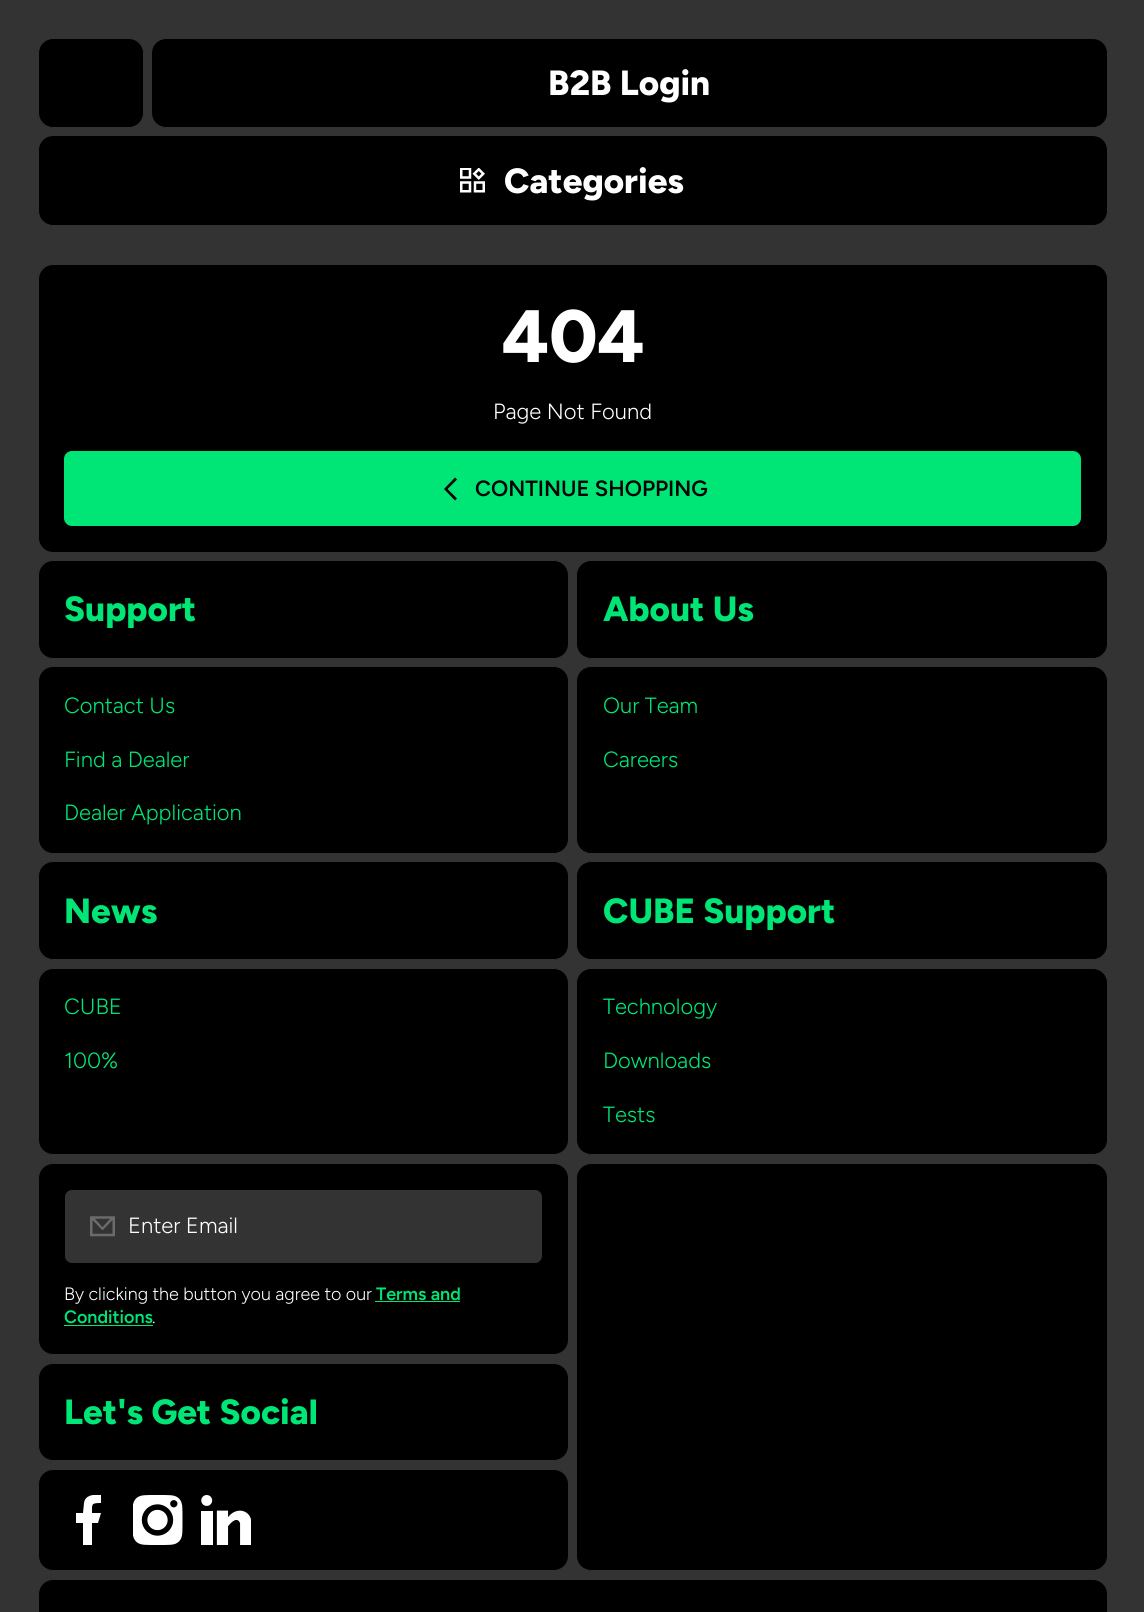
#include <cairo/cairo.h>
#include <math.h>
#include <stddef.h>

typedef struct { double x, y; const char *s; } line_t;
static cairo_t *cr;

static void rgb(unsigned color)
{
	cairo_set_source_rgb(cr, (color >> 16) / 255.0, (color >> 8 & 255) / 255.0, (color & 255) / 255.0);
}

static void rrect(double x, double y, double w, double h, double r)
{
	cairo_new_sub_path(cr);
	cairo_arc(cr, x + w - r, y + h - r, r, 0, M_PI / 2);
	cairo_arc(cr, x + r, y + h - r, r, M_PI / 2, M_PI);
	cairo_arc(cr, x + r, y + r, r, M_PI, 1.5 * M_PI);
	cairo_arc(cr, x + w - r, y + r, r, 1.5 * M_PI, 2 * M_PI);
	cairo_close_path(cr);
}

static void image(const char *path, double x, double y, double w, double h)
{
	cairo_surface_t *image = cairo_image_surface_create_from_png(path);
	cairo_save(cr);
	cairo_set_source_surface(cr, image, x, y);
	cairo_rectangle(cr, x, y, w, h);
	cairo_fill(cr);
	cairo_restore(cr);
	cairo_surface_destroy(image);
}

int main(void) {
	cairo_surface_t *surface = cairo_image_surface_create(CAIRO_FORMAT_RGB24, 1144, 1612);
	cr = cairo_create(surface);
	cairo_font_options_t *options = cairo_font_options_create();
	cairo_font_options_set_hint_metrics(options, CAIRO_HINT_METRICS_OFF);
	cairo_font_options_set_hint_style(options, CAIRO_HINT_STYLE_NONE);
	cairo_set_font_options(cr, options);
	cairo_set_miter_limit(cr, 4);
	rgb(0x333333);
	cairo_paint(cr);
	rgb(0x000000);
	rrect(38.5, 38.5, 105, 89, 14.5);
	cairo_fill_preserve(cr);
	rgb(0x333333);
	cairo_set_line_width(cr, 1);
	cairo_stroke(cr);
	rgb(0x000000);
	rrect(151.5, 38.5, 956, 89, 14.5);
	cairo_fill_preserve(cr);
	rgb(0x333333);
	cairo_stroke(cr);
	rgb(0x000000);
	rrect(38.5, 135.5, 1069, 90, 14.5);
	cairo_fill_preserve(cr);
	rgb(0x333333);
	cairo_stroke(cr);
	image("img/1.png", 460, 168, 25, 25);
	rgb(0x000000);
	rrect(38.5, 264.5, 1069, 288, 14.5);
	cairo_fill_preserve(cr);
	rgb(0x333333);
	cairo_stroke(cr);
	rgb(0x00e676);
	rrect(64, 451, 1017, 75, 8);
	cairo_fill(cr);
	rgb(0x000000);
	cairo_set_fill_rule(cr, CAIRO_FILL_RULE_EVEN_ODD);
	cairo_new_path(cr);
	cairo_move_to(cr, 455, 477.5);
	cairo_line_to(cr, 457, 479.5);
	cairo_line_to(cr, 447.5, 489);
	cairo_line_to(cr, 457, 498.5);
	cairo_line_to(cr, 455, 500.5);
	cairo_line_to(cr, 444, 489);
	cairo_close_path(cr);
	cairo_fill(cr);
	rrect(38.5, 560.5, 530, 98, 14.5);
	cairo_fill_preserve(cr);
	rgb(0x333333);
	cairo_stroke(cr);
	rgb(0x000000);
	rrect(576.5, 560.5, 531, 98, 14.5);
	cairo_fill_preserve(cr);
	rgb(0x333333);
	cairo_stroke(cr);
	rgb(0x000000);
	rrect(38.5, 666.5, 530, 187, 14.5);
	cairo_fill_preserve(cr);
	rgb(0x333333);
	cairo_stroke(cr);
	rgb(0x000000);
	rrect(576.5, 666.5, 531, 187, 14.5);
	cairo_fill_preserve(cr);
	rgb(0x333333);
	cairo_stroke(cr);
	rgb(0x000000);
	rrect(38.5, 861.5, 530, 98, 14.5);
	cairo_fill_preserve(cr);
	rgb(0x333333);
	cairo_stroke(cr);
	rgb(0x000000);
	rrect(576.5, 861.5, 531, 98, 14.5);
	cairo_fill_preserve(cr);
	rgb(0x333333);
	cairo_stroke(cr);
	rgb(0x000000);
	rrect(38.5, 968.5, 530, 186, 14.5);
	cairo_fill_preserve(cr);
	rgb(0x333333);
	cairo_stroke(cr);
	rgb(0x000000);
	rrect(576.5, 968.5, 531, 186, 14.5);
	cairo_fill_preserve(cr);
	rgb(0x333333);
	cairo_stroke(cr);
	rgb(0x000000);
	rrect(38.5, 1163.5, 530, 191, 14.5);
	cairo_fill_preserve(cr);
	rgb(0x333333);
	cairo_stroke(cr);
	rrect(64.5, 1189.5, 478, 74, 7.5);
	cairo_fill_preserve(cr);
	rgb(0x000000);
	cairo_stroke(cr);
	image("img/2.png", 90, 1216, 25, 21);
	rgb(0x00e676);
	cairo_rectangle(cr, 375, 1301, 85, 1);
	cairo_fill(cr);
	cairo_rectangle(cr, 64, 1325, 89, 1);
	cairo_fill(cr);
	rgb(0x000000);
	rrect(38.5, 1363.5, 530, 97, 14.5);
	cairo_fill_preserve(cr);
	rgb(0x333333);
	cairo_stroke(cr);
	rgb(0x000000);
	rrect(38.5, 1469.5, 530, 101, 14.5);
	cairo_fill_preserve(cr);
	rgb(0x333333);
	cairo_stroke(cr);
	cairo_save(cr);
	cairo_set_fill_rule(cr, CAIRO_FILL_RULE_WINDING);
	cairo_rectangle(cr, 64, 1495, 50, 50);
	cairo_clip(cr);
	rgb(0xffffff);
	cairo_new_path(cr);
	cairo_move_to(cr, 83, 1545);
	cairo_line_to(cr, 83, 1523);
	cairo_line_to(cr, 76, 1523);
	cairo_line_to(cr, 76, 1513);
	cairo_line_to(cr, 83, 1513);
	cairo_line_to(cr, 84, 1503);
	cairo_curve_to(cr, 85, 1495, 94, 1494, 101, 1495);
	cairo_line_to(cr, 101, 1503);
	cairo_curve_to(cr, 91, 1503, 92, 1504, 92, 1513);
	cairo_line_to(cr, 101, 1513);
	cairo_line_to(cr, 98, 1523);
	cairo_line_to(cr, 92, 1523);
	cairo_line_to(cr, 92, 1545);
	cairo_close_path(cr);
	cairo_fill(cr);
	cairo_restore(cr);
	image("img/3.png", 133, 1495, 50, 50);
	image("img/4.png", 201, 1495, 50, 50);
	rgb(0x000000);
	rrect(576.5, 1163.5, 531, 407, 14.5);
	cairo_fill_preserve(cr);
	rgb(0x333333);
	cairo_stroke(cr);
	rgb(0x000000);
	rrect(38.5, 1579.5, 1069, 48, 14.5);
	cairo_fill_preserve(cr);
	rgb(0x333333);
	cairo_stroke(cr);
	cairo_select_font_face(cr, "Figtree ExtraBold", CAIRO_FONT_SLANT_NORMAL, CAIRO_FONT_WEIGHT_NORMAL);
	cairo_set_font_size(cr, 35);
	rgb(0xffffff);
	cairo_move_to(cr, 548, 95);
	cairo_show_text(cr, "B2B Login");
	cairo_move_to(cr, 504, 193);
	cairo_show_text(cr, "Categories");
	cairo_set_font_size(cr, 74);
	cairo_move_to(cr, 502, 362);
	cairo_show_text(cr, "404");
	cairo_select_font_face(cr, "Figtree Light", CAIRO_FONT_SLANT_NORMAL, CAIRO_FONT_WEIGHT_NORMAL);
	cairo_set_font_size(cr, 22);
	cairo_move_to(cr, 493, 419);
	cairo_show_text(cr, "Page Not Found");
	cairo_select_font_face(cr, "Figtree SemiBold", CAIRO_FONT_SLANT_NORMAL, CAIRO_FONT_WEIGHT_NORMAL);
	rgb(0x000000);
	cairo_move_to(cr, 475, 496);
	cairo_show_text(cr, "CONTINUE SHOPPING");
	cairo_select_font_face(cr, "Figtree ExtraBold", CAIRO_FONT_SLANT_NORMAL, CAIRO_FONT_WEIGHT_NORMAL);
	cairo_set_font_size(cr, 35);
	rgb(0x00e676);
	cairo_move_to(cr, 64, 621);
	cairo_show_text(cr, "Support");
	cairo_move_to(cr, 603, 621);
	cairo_show_text(cr, "About Us");
	cairo_select_font_face(cr, "Figtree Light", CAIRO_FONT_SLANT_NORMAL, CAIRO_FONT_WEIGHT_NORMAL);
	cairo_set_font_size(cr, 22);
	{
		static const line_t items[] = {
			{64, 713, "Contact Us"},
			{64, 767, "Find a Dealer"},
			{64, 820, "Dealer Application"},
			{603, 713, "Our Team"},
			{603, 767, "Careers"},
		};
		for (size_t i = 0; i < sizeof items / sizeof *items; i++) {
			cairo_move_to(cr, items[i].x, items[i].y);
			cairo_show_text(cr, items[i].s);
		}
	}
	cairo_select_font_face(cr, "Figtree ExtraBold", CAIRO_FONT_SLANT_NORMAL, CAIRO_FONT_WEIGHT_NORMAL);
	cairo_set_font_size(cr, 35);
	cairo_move_to(cr, 64, 923);
	cairo_show_text(cr, "News");
	cairo_move_to(cr, 603, 923);
	cairo_show_text(cr, "CUBE Support");
	cairo_select_font_face(cr, "Figtree Light", CAIRO_FONT_SLANT_NORMAL, CAIRO_FONT_WEIGHT_NORMAL);
	cairo_set_font_size(cr, 22);
	{
		static const line_t items[] = {
			{64, 1014, "CUBE"},
			{64, 1068, "100%"},
			{603, 1014, "Technology"},
			{603, 1068, "Downloads"},
			{603, 1122, "Tests"},
		};
		for (size_t i = 0; i < sizeof items / sizeof *items; i++) {
			cairo_move_to(cr, items[i].x, items[i].y);
			cairo_show_text(cr, items[i].s);
		}
	}
	rgb(0xffffff);
	cairo_move_to(cr, 128, 1233);
	cairo_show_text(cr, "Enter Email");
	cairo_set_font_size(cr, 17.9);
	cairo_move_to(cr, 64, 1300);
	cairo_show_text(cr, "By clicking the button you agree to our");
	cairo_select_font_face(cr, "Figtree SemiBold", CAIRO_FONT_SLANT_NORMAL, CAIRO_FONT_WEIGHT_NORMAL);
	rgb(0x00e676);
	cairo_move_to(cr, 376, 1300);
	cairo_show_text(cr, "Terms and");
	cairo_move_to(cr, 64, 1323);
	cairo_show_text(cr, "Conditions");
	cairo_select_font_face(cr, "Figtree Light", CAIRO_FONT_SLANT_NORMAL, CAIRO_FONT_WEIGHT_NORMAL);
	rgb(0xffffff);
	cairo_move_to(cr, 152, 1323);
	cairo_show_text(cr, ".");
	cairo_select_font_face(cr, "Figtree ExtraBold", CAIRO_FONT_SLANT_NORMAL, CAIRO_FONT_WEIGHT_NORMAL);
	cairo_set_font_size(cr, 35);
	rgb(0x00e676);
	cairo_move_to(cr, 64, 1424);
	cairo_show_text(cr, "Let's Get Social");
	cairo_surface_write_to_png(surface, "page.png");
	cairo_font_options_destroy(options);
	cairo_destroy(cr);
	cairo_surface_destroy(surface);
	return 0;
}
